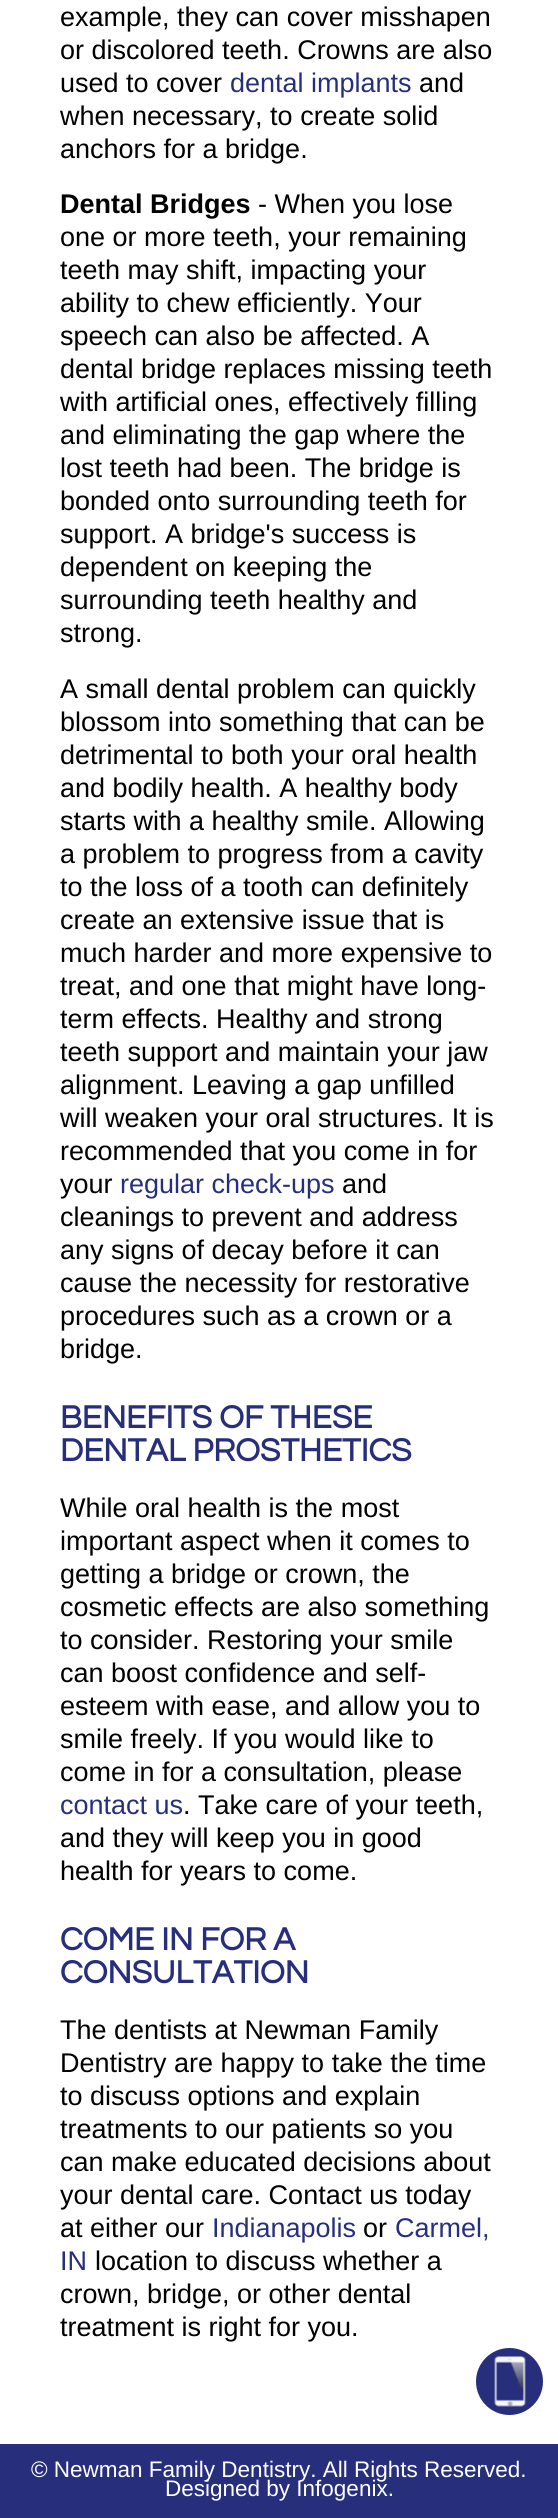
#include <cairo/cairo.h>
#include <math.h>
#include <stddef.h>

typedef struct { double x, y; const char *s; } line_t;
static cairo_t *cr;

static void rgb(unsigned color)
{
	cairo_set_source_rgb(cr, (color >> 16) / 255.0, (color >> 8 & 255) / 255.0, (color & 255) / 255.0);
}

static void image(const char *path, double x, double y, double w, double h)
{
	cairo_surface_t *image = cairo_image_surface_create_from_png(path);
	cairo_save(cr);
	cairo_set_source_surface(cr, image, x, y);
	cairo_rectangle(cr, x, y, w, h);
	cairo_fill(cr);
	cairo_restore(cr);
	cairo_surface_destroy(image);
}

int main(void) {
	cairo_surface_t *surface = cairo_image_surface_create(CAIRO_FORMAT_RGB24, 558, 2518);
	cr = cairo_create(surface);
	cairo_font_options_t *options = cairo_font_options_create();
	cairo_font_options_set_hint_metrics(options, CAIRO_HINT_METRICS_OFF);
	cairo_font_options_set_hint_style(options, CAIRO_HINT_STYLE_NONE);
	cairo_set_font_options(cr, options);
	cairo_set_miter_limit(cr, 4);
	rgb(0xffffff);
	cairo_paint(cr);
	rgb(0x272f7d);
	cairo_rectangle(cr, 0, 2444, 558, 74);
	cairo_fill(cr);
	cairo_arc(cr, 509.5, 2381.5, 33.5, 0, 2 * M_PI);
	cairo_fill(cr);
	image("img/1.png", 494, 2356, 32, 51);
	cairo_select_font_face(cr, "Liberation Sans", CAIRO_FONT_SLANT_NORMAL, CAIRO_FONT_WEIGHT_NORMAL);
	cairo_set_font_size(cr, 27);
	rgb(0x000000);
	{
		static const line_t items[] = {
			{60, 26, "example, they can cover misshapen"},
			{60, 59, "or discolored teeth. Crowns are also"},
			{60, 92, "used to cover"},
		};
		for (size_t i = 0; i < sizeof items / sizeof *items; i++) {
			cairo_move_to(cr, items[i].x, items[i].y);
			cairo_show_text(cr, items[i].s);
		}
	}
	rgb(0x272f7d);
	cairo_move_to(cr, 230, 92);
	cairo_show_text(cr, "dental implants");
	rgb(0x000000);
	{
		static const line_t items[] = {
			{419, 92, "and"},
			{60, 125, "when necessary, to create solid"},
			{60, 158, "anchors for a bridge."},
		};
		for (size_t i = 0; i < sizeof items / sizeof *items; i++) {
			cairo_move_to(cr, items[i].x, items[i].y);
			cairo_show_text(cr, items[i].s);
		}
	}
	cairo_select_font_face(cr, "Liberation Sans", CAIRO_FONT_SLANT_NORMAL, CAIRO_FONT_WEIGHT_BOLD);
	cairo_move_to(cr, 60, 213);
	cairo_show_text(cr, "Dental Bridges");
	cairo_select_font_face(cr, "Liberation Sans", CAIRO_FONT_SLANT_NORMAL, CAIRO_FONT_WEIGHT_NORMAL);
	{
		static const line_t items[] = {
			{258, 213, "- When you lose"},
			{60, 246, "one or more teeth, your remaining"},
			{60, 279, "teeth may shift, impacting your"},
			{60, 312, "ability to chew efficiently. Your"},
			{60, 345, "speech can also be affected. A"},
			{60, 378, "dental bridge replaces missing teeth"},
			{60, 411, "with artificial ones, effectively filling"},
			{60, 444, "and eliminating the gap where the"},
			{60, 477, "lost teeth had been. The bridge is"},
			{60, 510, "bonded onto surrounding teeth for"},
			{60, 543, "support. A bridge's success is"},
			{60, 576, "dependent on keeping the"},
			{60, 609, "surrounding teeth healthy and"},
			{60, 642, "strong."},
			{60, 698, "A small dental problem can quickly"},
			{60, 731, "blossom into something that can be"},
			{60, 764, "detrimental to both your oral health"},
			{60, 797, "and bodily health. A healthy body"},
			{60, 830, "starts with a healthy smile. Allowing"},
			{60, 863, "a problem to progress from a cavity"},
			{60, 896, "to the loss of a tooth can definitely"},
			{60, 929, "create an extensive issue that is"},
			{60, 962, "much harder and more expensive to"},
			{60, 995, "treat, and one that might have long-"},
			{60, 1028, "term effects. Healthy and strong"},
			{60, 1061, "teeth support and maintain your jaw"},
			{60, 1094, "alignment. Leaving a gap unfilled"},
			{60, 1127, "will weaken your oral structures. It is"},
			{60, 1160, "recommended that you come in for"},
			{60, 1193, "your"},
		};
		for (size_t i = 0; i < sizeof items / sizeof *items; i++) {
			cairo_move_to(cr, items[i].x, items[i].y);
			cairo_show_text(cr, items[i].s);
		}
	}
	rgb(0x272f7d);
	cairo_move_to(cr, 120, 1193);
	cairo_show_text(cr, "regular check-ups");
	rgb(0x000000);
	{
		static const line_t items[] = {
			{342, 1193, "and"},
			{60, 1226, "cleanings to prevent and address"},
			{60, 1259, "any signs of decay before it can"},
			{60, 1292, "cause the necessity for restorative"},
			{60, 1325, "procedures such as a crown or a"},
			{60, 1358, "bridge."},
		};
		for (size_t i = 0; i < sizeof items / sizeof *items; i++) {
			cairo_move_to(cr, items[i].x, items[i].y);
			cairo_show_text(cr, items[i].s);
		}
	}
	cairo_select_font_face(cr, "Questrial", CAIRO_FONT_SLANT_NORMAL, CAIRO_FONT_WEIGHT_BOLD);
	cairo_set_font_size(cr, 33);
	rgb(0x272f7d);
	cairo_move_to(cr, 60, 1428);
	cairo_show_text(cr, "BENEFITS OF THESE");
	cairo_move_to(cr, 60, 1461);
	cairo_show_text(cr, "DENTAL PROSTHETICS");
	cairo_select_font_face(cr, "Liberation Sans", CAIRO_FONT_SLANT_NORMAL, CAIRO_FONT_WEIGHT_NORMAL);
	cairo_set_font_size(cr, 27);
	rgb(0x000000);
	{
		static const line_t items[] = {
			{60, 1517, "While oral health is the most"},
			{60, 1550, "important aspect when it comes to"},
			{60, 1583, "getting a bridge or crown, the"},
			{60, 1616, "cosmetic effects are also something"},
			{60, 1649, "to consider. Restoring your smile"},
			{60, 1682, "can boost confidence and self-"},
			{60, 1715, "esteem with ease, and allow you to"},
			{60, 1748, "smile freely. If you would like to"},
			{60, 1781, "come in for a consultation, please"},
		};
		for (size_t i = 0; i < sizeof items / sizeof *items; i++) {
			cairo_move_to(cr, items[i].x, items[i].y);
			cairo_show_text(cr, items[i].s);
		}
	}
	rgb(0x272f7d);
	cairo_move_to(cr, 60, 1814);
	cairo_show_text(cr, "contact us");
	rgb(0x000000);
	{
		static const line_t items[] = {
			{183, 1814, ". Take care of your teeth,"},
			{60, 1847, "and they will keep you in good"},
			{60, 1880, "health for years to come."},
		};
		for (size_t i = 0; i < sizeof items / sizeof *items; i++) {
			cairo_move_to(cr, items[i].x, items[i].y);
			cairo_show_text(cr, items[i].s);
		}
	}
	cairo_select_font_face(cr, "Questrial", CAIRO_FONT_SLANT_NORMAL, CAIRO_FONT_WEIGHT_BOLD);
	cairo_set_font_size(cr, 33);
	rgb(0x272f7d);
	cairo_move_to(cr, 60, 1950);
	cairo_show_text(cr, "COME IN FOR A");
	cairo_move_to(cr, 60, 1983);
	cairo_show_text(cr, "CONSULTATION");
	cairo_select_font_face(cr, "Liberation Sans", CAIRO_FONT_SLANT_NORMAL, CAIRO_FONT_WEIGHT_NORMAL);
	cairo_set_font_size(cr, 27);
	rgb(0x000000);
	{
		static const line_t items[] = {
			{60, 2039, "The dentists at Newman Family"},
			{60, 2072, "Dentistry are happy to take the time"},
			{60, 2105, "to discuss options and explain"},
			{60, 2138, "treatments to our patients so you"},
			{60, 2171, "can make educated decisions about"},
			{60, 2204, "your dental care. Contact us today"},
			{60, 2237, "at either our"},
		};
		for (size_t i = 0; i < sizeof items / sizeof *items; i++) {
			cairo_move_to(cr, items[i].x, items[i].y);
			cairo_show_text(cr, items[i].s);
		}
	}
	rgb(0x272f7d);
	cairo_move_to(cr, 212, 2237);
	cairo_show_text(cr, "Indianapolis");
	rgb(0x000000);
	cairo_move_to(cr, 363, 2237);
	cairo_show_text(cr, "or");
	rgb(0x272f7d);
	cairo_move_to(cr, 395, 2237);
	cairo_show_text(cr, "Carmel,");
	cairo_move_to(cr, 60, 2270);
	cairo_show_text(cr, "IN");
	rgb(0x000000);
	{
		static const line_t items[] = {
			{95, 2270, "location to discuss whether a"},
			{60, 2303, "crown, bridge, or other dental"},
			{60, 2336, "treatment is right for you."},
		};
		for (size_t i = 0; i < sizeof items / sizeof *items; i++) {
			cairo_move_to(cr, items[i].x, items[i].y);
			cairo_show_text(cr, items[i].s);
		}
	}
	cairo_set_font_size(cr, 22.5);
	rgb(0xffffff);
	cairo_move_to(cr, 31, 2477);
	cairo_show_text(cr, "© Newman Family Dentistry. All Rights Reserved.");
	cairo_move_to(cr, 165, 2496);
	cairo_show_text(cr, "Designed by Infogenix.");
	cairo_surface_write_to_png(surface, "page.png");
	cairo_font_options_destroy(options);
	cairo_destroy(cr);
	cairo_surface_destroy(surface);
	return 0;
}
